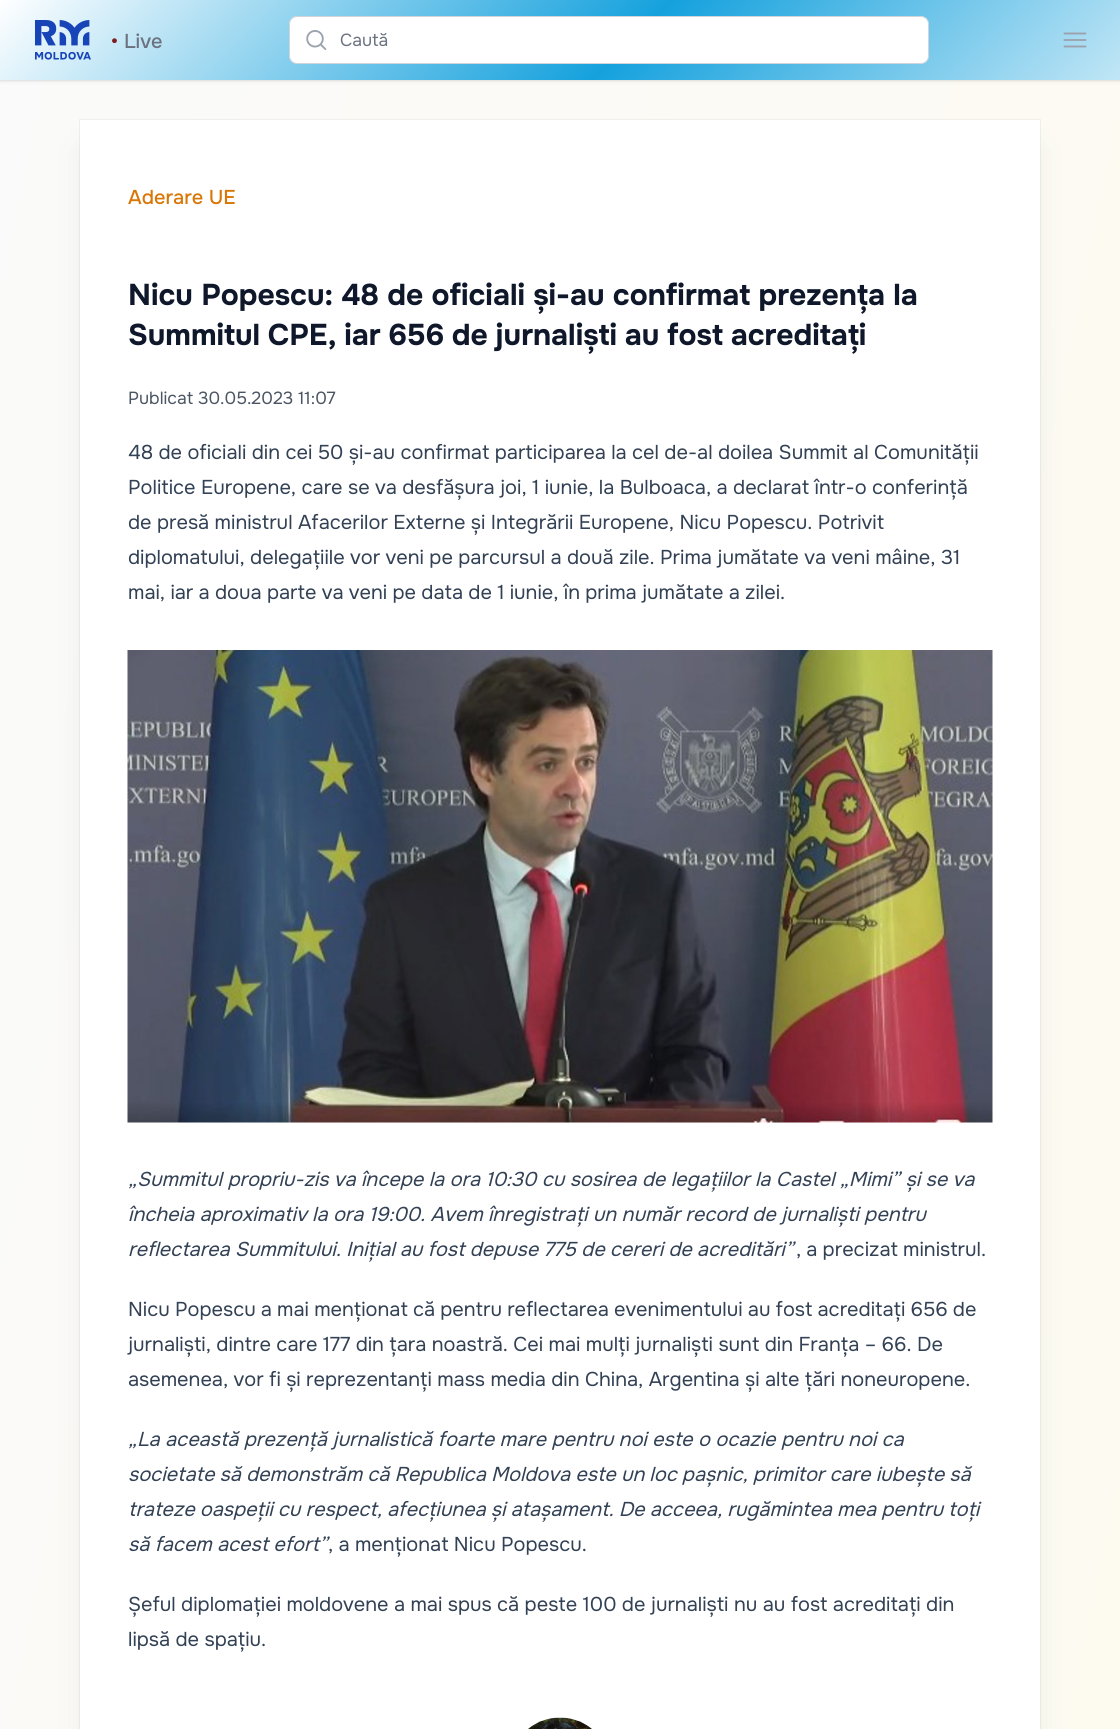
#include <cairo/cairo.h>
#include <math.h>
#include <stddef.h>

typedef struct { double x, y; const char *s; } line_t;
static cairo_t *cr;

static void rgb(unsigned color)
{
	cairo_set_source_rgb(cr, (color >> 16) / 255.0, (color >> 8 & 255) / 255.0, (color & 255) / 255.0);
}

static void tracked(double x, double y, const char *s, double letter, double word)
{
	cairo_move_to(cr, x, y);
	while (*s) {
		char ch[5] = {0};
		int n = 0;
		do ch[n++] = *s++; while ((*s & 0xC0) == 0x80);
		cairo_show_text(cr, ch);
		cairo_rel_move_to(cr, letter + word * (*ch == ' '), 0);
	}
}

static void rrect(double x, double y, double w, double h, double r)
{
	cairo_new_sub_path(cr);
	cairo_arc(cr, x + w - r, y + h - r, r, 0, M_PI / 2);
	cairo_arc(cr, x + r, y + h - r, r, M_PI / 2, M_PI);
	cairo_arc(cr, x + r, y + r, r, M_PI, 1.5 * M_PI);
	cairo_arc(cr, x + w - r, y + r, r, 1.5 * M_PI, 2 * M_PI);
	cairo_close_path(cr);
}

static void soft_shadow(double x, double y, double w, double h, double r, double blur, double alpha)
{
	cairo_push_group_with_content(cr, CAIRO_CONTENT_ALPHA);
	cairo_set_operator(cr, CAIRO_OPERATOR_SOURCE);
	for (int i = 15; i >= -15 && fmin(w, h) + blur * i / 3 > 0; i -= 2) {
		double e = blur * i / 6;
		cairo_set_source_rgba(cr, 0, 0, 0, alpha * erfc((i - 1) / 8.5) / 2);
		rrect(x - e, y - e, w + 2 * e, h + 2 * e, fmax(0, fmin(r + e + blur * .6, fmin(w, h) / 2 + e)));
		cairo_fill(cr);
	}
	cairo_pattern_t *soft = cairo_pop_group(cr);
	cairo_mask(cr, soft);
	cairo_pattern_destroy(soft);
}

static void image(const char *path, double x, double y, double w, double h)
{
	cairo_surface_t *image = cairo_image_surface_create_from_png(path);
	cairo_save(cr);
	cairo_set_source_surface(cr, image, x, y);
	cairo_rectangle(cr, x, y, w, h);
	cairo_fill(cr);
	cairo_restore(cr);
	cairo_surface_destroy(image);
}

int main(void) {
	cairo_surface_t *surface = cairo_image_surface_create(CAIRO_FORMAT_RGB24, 1120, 1729);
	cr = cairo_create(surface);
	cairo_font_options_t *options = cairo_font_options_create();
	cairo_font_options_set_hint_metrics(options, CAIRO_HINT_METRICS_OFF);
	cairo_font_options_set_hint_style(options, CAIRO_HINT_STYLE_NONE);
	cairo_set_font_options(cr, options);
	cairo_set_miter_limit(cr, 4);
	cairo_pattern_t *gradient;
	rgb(0xffffff);
	cairo_paint(cr);
	gradient = cairo_pattern_create_linear(-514, 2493, 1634, 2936);
	cairo_pattern_add_color_stop_rgba(gradient, 0, 0.98, 0.98, 0.98, 1);
	cairo_pattern_add_color_stop_rgba(gradient, 1, 1, 0.984, 0.922, 1);
	cairo_set_source(cr, gradient);
	cairo_pattern_destroy(gradient);
	cairo_rectangle(cr, 0, 80, 1120, 1649);
	cairo_fill(cr);
	rgb(0x000000);
	soft_shadow(1, 3, 1118, 77, 0, 1, 0.1);
	soft_shadow(0, 1, 1120, 80, 0, 2, 0.1);
	gradient = cairo_pattern_create_linear(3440, 1360, 1040, -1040);
	cairo_pattern_add_color_stop_rgba(gradient, 0, 1, 1, 1, 1);
	cairo_pattern_add_color_stop_rgba(gradient, 0.14, 1, 1, 1, 1);
	cairo_pattern_add_color_stop_rgba(gradient, 0.29, 0.443, 0.784, 0.914, 1);
	cairo_pattern_add_color_stop_rgba(gradient, 0.43, 1, 1, 1, 1);
	cairo_pattern_add_color_stop_rgba(gradient, 0.71, 1, 1, 1, 1);
	cairo_pattern_add_color_stop_rgba(gradient, 0.86, 0.082, 0.631, 0.867, 1);
	cairo_pattern_add_color_stop_rgba(gradient, 1, 1, 1, 1, 1);
	cairo_set_source(cr, gradient);
	cairo_pattern_destroy(gradient);
	cairo_rectangle(cr, 0, 0, 1120, 80);
	cairo_fill(cr);
	image("img/1.png", 35, 20, 56, 40);
	rgb(0xffffff);
	rrect(289.5, 16.5, 639, 47, 7.5);
	cairo_fill_preserve(cr);
	rgb(0xd1d5db);
	cairo_set_line_width(cr, 1);
	cairo_stroke(cr);
	image("img/2.png", 306, 30, 21, 20);
	cairo_new_path(cr);
	cairo_move_to(cr, 1064.5, 33.5);
	cairo_line_to(cr, 1085.5, 33.5);
	cairo_move_to(cr, 1064.5, 40);
	cairo_line_to(cr, 1085.5, 40);
	cairo_move_to(cr, 1064.5, 46.5);
	cairo_line_to(cr, 1085.5, 46.5);
	rgb(0x9ca3af);
	cairo_set_line_width(cr, 1.9);
	cairo_set_line_cap(cr, CAIRO_LINE_CAP_ROUND);
	cairo_set_line_join(cr, CAIRO_LINE_JOIN_ROUND);
	cairo_stroke(cr);
	rgb(0x334155);
	soft_shadow(86, 151, 948, 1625, 0, 15.5, 0.1);
	cairo_rectangle(cr, 79.5, 119.5, 961, 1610);
	cairo_set_source_rgba(cr, 0.067, 0.094, 0.153, 0.05);
	cairo_set_line_width(cr, 1);
	cairo_set_line_cap(cr, CAIRO_LINE_CAP_BUTT);
	cairo_set_line_join(cr, CAIRO_LINE_JOIN_MITER);
	cairo_stroke(cr);
	rgb(0xffffff);
	cairo_rectangle(cr, 80, 120, 960, 1609);
	cairo_fill(cr);
	image("img/3.png", 127, 650, 866, 473);
	image("img/4.png", 528, 1717, 64, 12);
	cairo_select_font_face(cr, "Onest Medium", CAIRO_FONT_SLANT_NORMAL, CAIRO_FONT_WEIGHT_NORMAL);
	cairo_set_font_size(cr, 20);
	rgb(0x7f1d1d);
	cairo_move_to(cr, 111, 48);
	cairo_show_text(cr, "•");
	rgb(0x6b7280);
	cairo_move_to(cr, 124, 48);
	cairo_show_text(cr, "Live");
	cairo_select_font_face(cr, "Onest", CAIRO_FONT_SLANT_NORMAL, CAIRO_FONT_WEIGHT_NORMAL);
	cairo_set_font_size(cr, 17.5);
	cairo_move_to(cr, 340, 46);
	cairo_show_text(cr, "Caută");
	cairo_select_font_face(cr, "Onest Medium", CAIRO_FONT_SLANT_NORMAL, CAIRO_FONT_WEIGHT_NORMAL);
	cairo_set_font_size(cr, 20);
	rgb(0xd97706);
	cairo_move_to(cr, 128, 204);
	cairo_show_text(cr, "Aderare UE");
	cairo_select_font_face(cr, "Onest", CAIRO_FONT_SLANT_NORMAL, CAIRO_FONT_WEIGHT_BOLD);
	cairo_set_font_size(cr, 30);
	rgb(0x0f172a);
	tracked(128, 305, "Nicu Popescu: 48 de oficiali și-au confirmat prezența la", 0, -0.25);
	tracked(128, 345, "Summitul CPE, iar 656 de jurnaliști au fost acreditați", 0, -0.75);
	cairo_select_font_face(cr, "Onest", CAIRO_FONT_SLANT_NORMAL, CAIRO_FONT_WEIGHT_NORMAL);
	cairo_set_font_size(cr, 17.5);
	rgb(0x4b5563);
	cairo_move_to(cr, 128, 404);
	cairo_show_text(cr, "Publicat 30.05.2023 11:07");
	cairo_set_font_size(cr, 20);
	rgb(0x334155);
	{
		static const line_t items[] = {
			{128, 459, "48 de oficiali din cei 50 și-au confirmat participarea la cel de-al doilea Summit al Comunității"},
			{128, 494, "Politice Europene, care se va desfășura joi, 1 iunie, la Bulboaca, a declarat într-o conferință"},
			{128, 529, "de presă ministrul Afacerilor Externe și Integrării Europene, Nicu Popescu. Potrivit"},
			{128, 564, "diplomatului, delegațiile vor veni pe parcursul a două zile. Prima jumătate va veni mâine, 31"},
		};
		for (size_t i = 0; i < sizeof items / sizeof *items; i++) {
			cairo_move_to(cr, items[i].x, items[i].y);
			cairo_show_text(cr, items[i].s);
		}
	}
	tracked(128, 599, "mai, iar a doua parte va veni pe data de 1 iunie, în prima jumătate a zilei.", 0, -0.1);
	cairo_select_font_face(cr, "Onest", CAIRO_FONT_SLANT_ITALIC, CAIRO_FONT_WEIGHT_NORMAL);
	cairo_move_to(cr, 128, 1186);
	cairo_show_text(cr, "„Summitul propriu-zis va începe la ora 10:30 cu sosirea de legațiilor la Castel „Mimi” și se va");
	cairo_move_to(cr, 128, 1221);
	cairo_show_text(cr, "încheia aproximativ la ora 19:00. Avem înregistrați un număr record de jurnaliști pentru");
	tracked(128, 1256, "reflectarea Summitului. Inițial au fost depuse 775 de cereri de acreditări”", 0, -0.25);
	cairo_select_font_face(cr, "Onest", CAIRO_FONT_SLANT_NORMAL, CAIRO_FONT_WEIGHT_NORMAL);
	tracked(796, 1256, ", a precizat ministrul.", 0, -0.25);
	tracked(128, 1316, "Nicu Popescu a mai menționat că pentru reflectarea evenimentului au fost acreditați 656 de", 0, -0.25);
	cairo_move_to(cr, 128, 1351);
	cairo_show_text(cr, "jurnaliști, dintre care 177 din țara noastră. Cei mai mulți jurnaliști sunt din Franța – 66. De");
	cairo_move_to(cr, 128, 1386);
	cairo_show_text(cr, "asemenea, vor fi și reprezentanți mass media din China, Argentina și alte țări noneuropene.");
	cairo_select_font_face(cr, "Onest", CAIRO_FONT_SLANT_ITALIC, CAIRO_FONT_WEIGHT_NORMAL);
	cairo_move_to(cr, 128, 1446);
	cairo_show_text(cr, "„La această prezență jurnalistică foarte mare pentru noi este o ocazie pentru noi ca");
	{
		static const line_t items[] = {
			{128, 1481, "societate să demonstrăm că Republica Moldova este un loc pașnic, primitor care iubește să"},
			{128, 1516, "trateze oaspeții cu respect, afecțiunea și atașament. De acceea, rugămintea mea pentru toți"},
			{128, 1551, "să facem acest efort”"},
		};
		for (size_t i = 0; i < sizeof items / sizeof *items; i++) {
			tracked(items[i].x, items[i].y, items[i].s, 0, -0.25);
		}
	}
	cairo_select_font_face(cr, "Onest", CAIRO_FONT_SLANT_NORMAL, CAIRO_FONT_WEIGHT_NORMAL);
	tracked(328, 1551, ", a menționat Nicu Popescu.", 0, -0.1);
	cairo_move_to(cr, 128, 1611);
	cairo_show_text(cr, "Șeful diplomației moldovene a mai spus că peste 100 de jurnaliști nu au fost acreditați din");
	cairo_move_to(cr, 128, 1646);
	cairo_show_text(cr, "lipsă de spațiu.");
	cairo_surface_write_to_png(surface, "page.png");
	cairo_font_options_destroy(options);
	cairo_destroy(cr);
	cairo_surface_destroy(surface);
	return 0;
}
